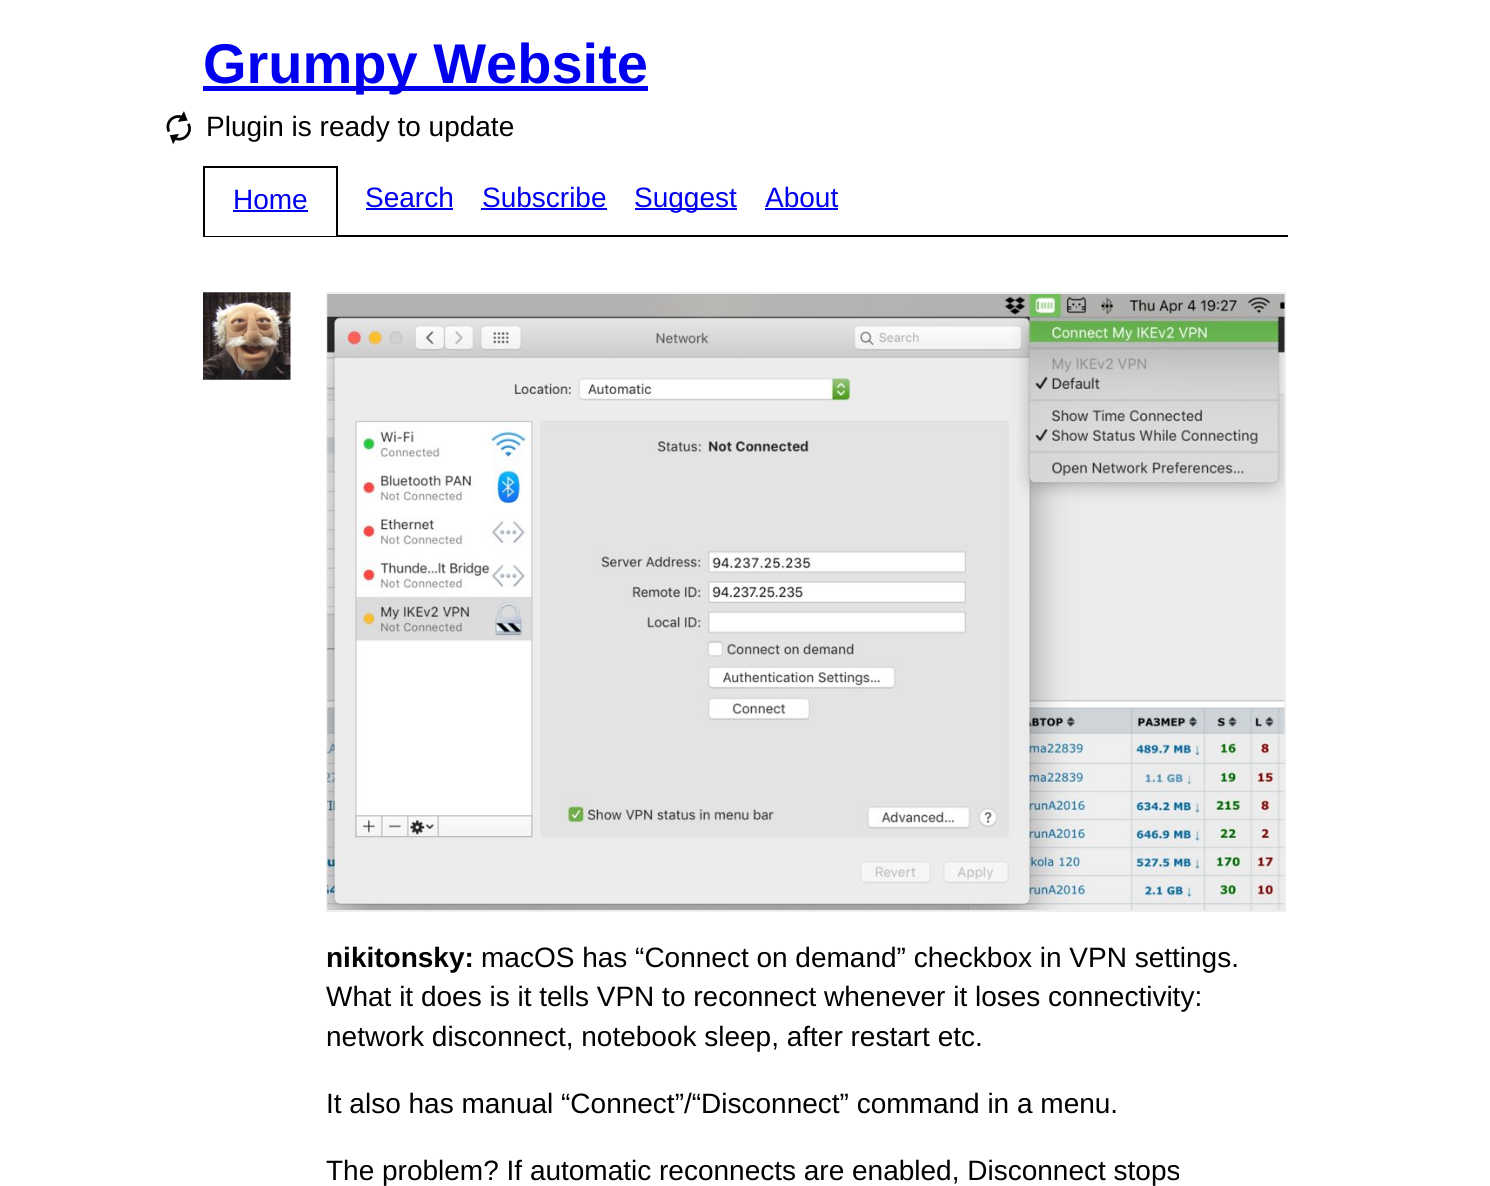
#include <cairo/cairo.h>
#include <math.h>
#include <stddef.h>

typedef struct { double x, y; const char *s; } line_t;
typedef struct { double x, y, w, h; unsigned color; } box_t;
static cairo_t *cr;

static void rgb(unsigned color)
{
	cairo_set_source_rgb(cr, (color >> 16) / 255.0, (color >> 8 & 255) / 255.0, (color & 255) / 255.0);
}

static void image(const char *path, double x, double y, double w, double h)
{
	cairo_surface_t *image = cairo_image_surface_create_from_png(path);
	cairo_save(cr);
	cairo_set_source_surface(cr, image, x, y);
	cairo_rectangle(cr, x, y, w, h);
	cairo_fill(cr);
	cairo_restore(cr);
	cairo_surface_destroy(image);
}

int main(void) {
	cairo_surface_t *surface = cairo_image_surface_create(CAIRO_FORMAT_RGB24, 1490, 1186);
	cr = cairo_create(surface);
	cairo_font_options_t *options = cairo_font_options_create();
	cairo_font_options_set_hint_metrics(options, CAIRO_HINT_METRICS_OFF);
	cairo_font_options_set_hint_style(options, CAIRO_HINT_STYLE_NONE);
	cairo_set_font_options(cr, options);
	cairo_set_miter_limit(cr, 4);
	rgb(0xffffff);
	cairo_paint(cr);
	rgb(0x0000ee);
	cairo_rectangle(cr, 203, 86, 445, 5);
	cairo_fill(cr);
	image("img/1.png", 166, 111, 25, 34);
	{
		static const box_t items[] = {
			{203, 235, 1085, 2, 0x000000},
			{205, 235, 131, 1, 0xffffff},
			{203, 166, 135, 2, 0x000000},
			{336, 166, 2, 70, 0x000000},
			{203, 166, 2, 70, 0x000000},
			{233, 210, 75, 2, 0x0000ee},
			{366, 208, 87, 2, 0x0000ee},
			{481, 208, 126, 2, 0x0000ee},
			{635, 208, 102, 2, 0x0000ee},
			{765, 208, 73, 2, 0x0000ee},
		};
		for (size_t i = 0; i < sizeof items / sizeof *items; i++) {
			rgb(items[i].color);
			cairo_rectangle(cr, items[i].x, items[i].y, items[i].w, items[i].h);
			cairo_fill(cr);
		}
	}
	image("img/2.png", 203, 292, 88, 88);
	cairo_rectangle(cr, 327, 293, 958, 618);
	rgb(0xeeeeee);
	cairo_stroke(cr);
	image("img/3.png", 327, 294, 958, 616);
	cairo_select_font_face(cr, "Liberation Sans", CAIRO_FONT_SLANT_NORMAL, CAIRO_FONT_WEIGHT_BOLD);
	cairo_set_font_size(cr, 56);
	rgb(0x0000ee);
	cairo_move_to(cr, 203, 83);
	cairo_show_text(cr, "Grumpy Website");
	cairo_select_font_face(cr, "Liberation Sans", CAIRO_FONT_SLANT_NORMAL, CAIRO_FONT_WEIGHT_NORMAL);
	cairo_set_font_size(cr, 28);
	rgb(0x000000);
	cairo_move_to(cr, 206, 136);
	cairo_show_text(cr, "Plugin is ready to update");
	rgb(0x0000ee);
	{
		static const line_t items[] = {
			{233, 209, "Home"},
			{365, 207, "Search"},
			{482, 207, "Subscribe"},
			{634, 207, "Suggest"},
			{765, 207, "About"},
		};
		for (size_t i = 0; i < sizeof items / sizeof *items; i++) {
			cairo_move_to(cr, items[i].x, items[i].y);
			cairo_show_text(cr, items[i].s);
		}
	}
	cairo_select_font_face(cr, "Liberation Sans", CAIRO_FONT_SLANT_NORMAL, CAIRO_FONT_WEIGHT_BOLD);
	rgb(0x000000);
	cairo_move_to(cr, 326, 967);
	cairo_show_text(cr, "nikitonsky:");
	cairo_select_font_face(cr, "Liberation Sans", CAIRO_FONT_SLANT_NORMAL, CAIRO_FONT_WEIGHT_NORMAL);
	{
		static const line_t items[] = {
			{481, 967, "macOS has “Connect on demand” checkbox in VPN settings."},
			{326, 1006, "What it does is it tells VPN to reconnect whenever it loses connectivity:"},
			{326, 1046, "network disconnect, notebook sleep, after restart etc."},
			{326, 1113, "It also has manual “Connect”/“Disconnect” command in a menu."},
			{326, 1180, "The problem? If automatic reconnects are enabled, Disconnect stops"},
		};
		for (size_t i = 0; i < sizeof items / sizeof *items; i++) {
			cairo_move_to(cr, items[i].x, items[i].y);
			cairo_show_text(cr, items[i].s);
		}
	}
	cairo_surface_write_to_png(surface, "page.png");
	cairo_font_options_destroy(options);
	cairo_destroy(cr);
	cairo_surface_destroy(surface);
	return 0;
}
